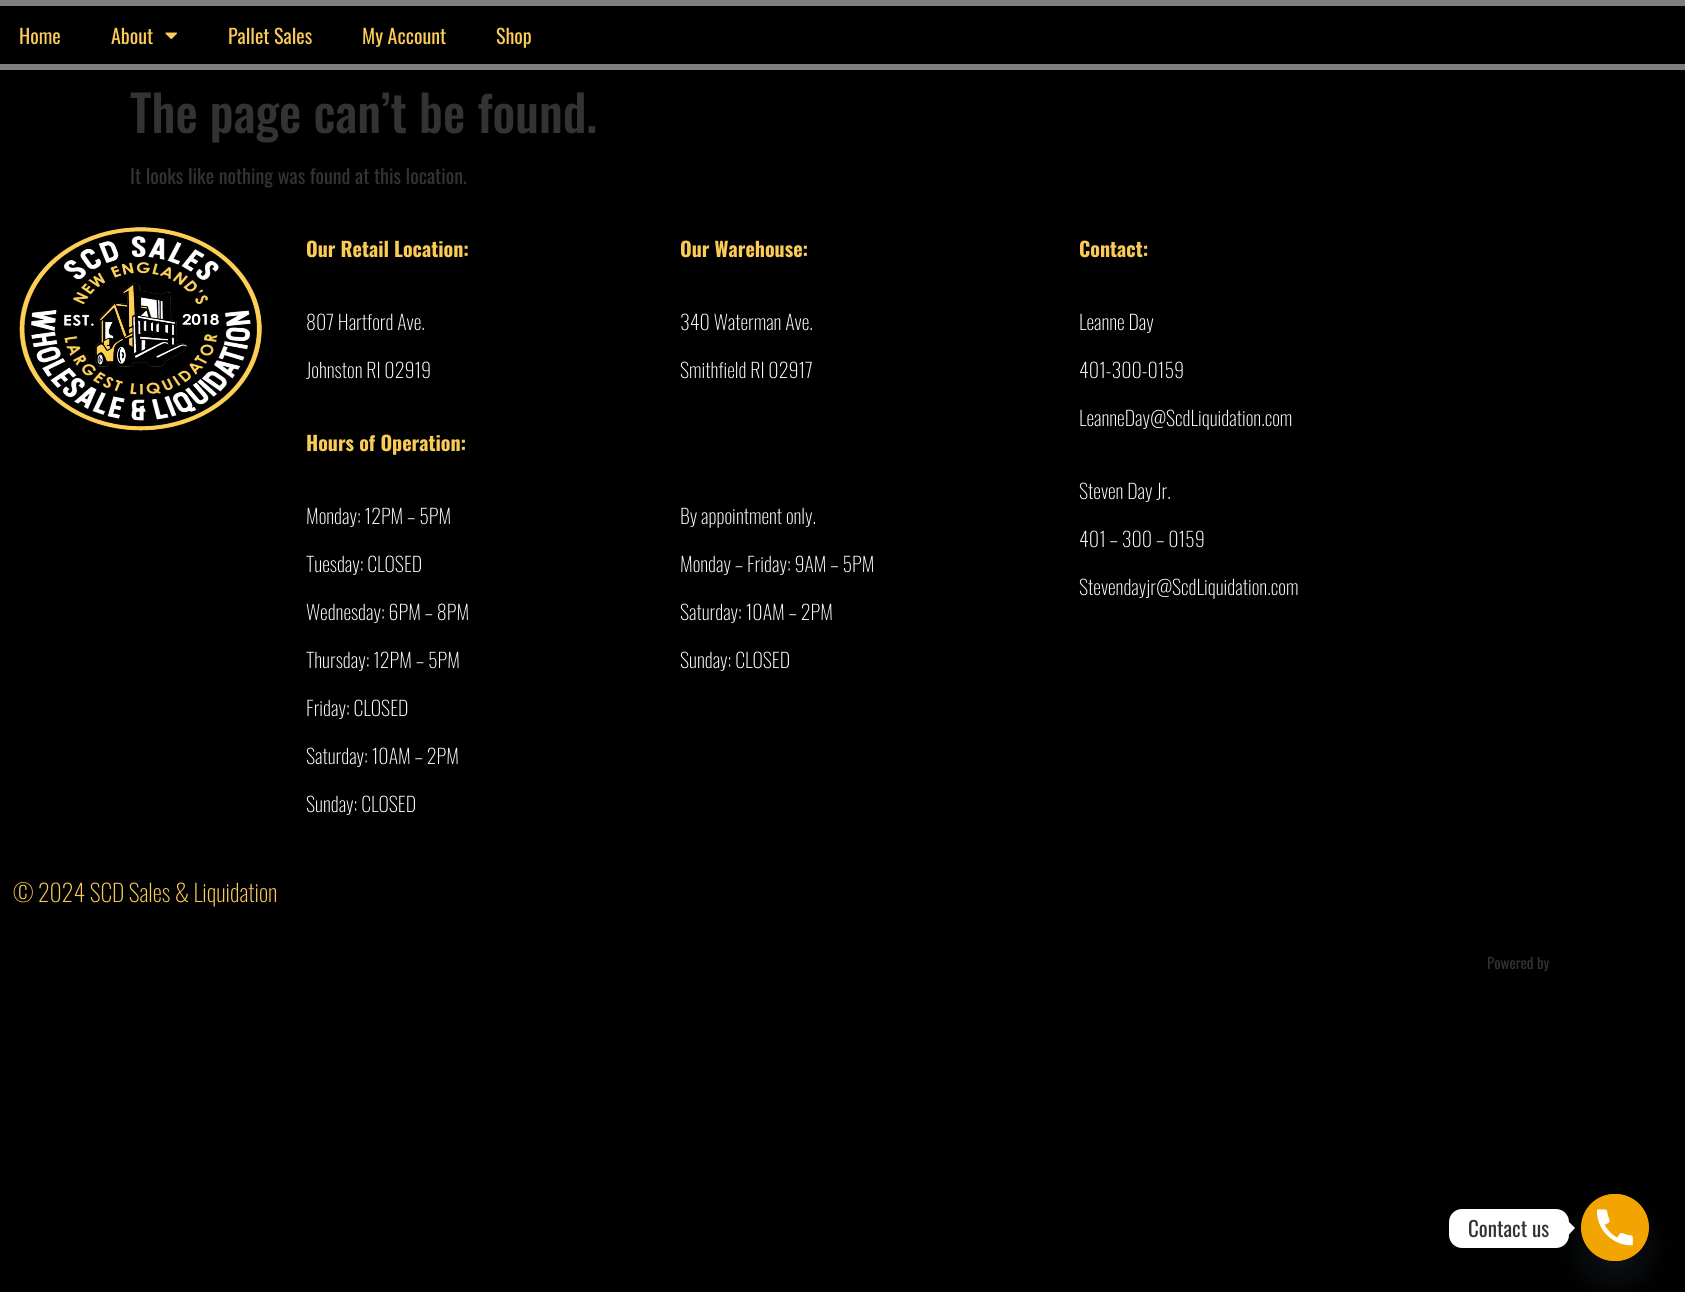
#include <cairo/cairo.h>
#include <math.h>
#include <stddef.h>

typedef struct { double x, y; const char *s; } line_t;
static cairo_t *cr;

static void rgb(unsigned color)
{
	cairo_set_source_rgb(cr, (color >> 16) / 255.0, (color >> 8 & 255) / 255.0, (color & 255) / 255.0);
}

static void rrect(double x, double y, double w, double h, double r)
{
	cairo_new_sub_path(cr);
	cairo_arc(cr, x + w - r, y + h - r, r, 0, M_PI / 2);
	cairo_arc(cr, x + r, y + h - r, r, M_PI / 2, M_PI);
	cairo_arc(cr, x + r, y + r, r, M_PI, 1.5 * M_PI);
	cairo_arc(cr, x + w - r, y + r, r, 1.5 * M_PI, 2 * M_PI);
	cairo_close_path(cr);
}

static void soft_shadow(double x, double y, double w, double h, double r, double blur, double alpha)
{
	cairo_push_group_with_content(cr, CAIRO_CONTENT_ALPHA);
	cairo_set_operator(cr, CAIRO_OPERATOR_SOURCE);
	for (int i = 15; i >= -15 && fmin(w, h) + blur * i / 3 > 0; i -= 2) {
		double e = blur * i / 6;
		cairo_set_source_rgba(cr, 0, 0, 0, alpha * erfc((i - 1) / 8.5) / 2);
		rrect(x - e, y - e, w + 2 * e, h + 2 * e, fmax(0, fmin(r + e + blur * .6, fmin(w, h) / 2 + e)));
		cairo_fill(cr);
	}
	cairo_pattern_t *soft = cairo_pop_group(cr);
	cairo_mask(cr, soft);
	cairo_pattern_destroy(soft);
}

static void image(const char *path, double x, double y, double w, double h)
{
	cairo_surface_t *image = cairo_image_surface_create_from_png(path);
	cairo_save(cr);
	cairo_set_source_surface(cr, image, x, y);
	cairo_rectangle(cr, x, y, w, h);
	cairo_fill(cr);
	cairo_restore(cr);
	cairo_surface_destroy(image);
}

int main(void) {
	cairo_surface_t *surface = cairo_image_surface_create(CAIRO_FORMAT_RGB24, 1685, 1292);
	cr = cairo_create(surface);
	cairo_font_options_t *options = cairo_font_options_create();
	cairo_font_options_set_hint_metrics(options, CAIRO_HINT_METRICS_OFF);
	cairo_font_options_set_hint_style(options, CAIRO_HINT_STYLE_NONE);
	cairo_set_font_options(cr, options);
	cairo_set_miter_limit(cr, 4);
	rgb(0x000000);
	cairo_paint(cr);
	rgb(0x7f7f7f);
	cairo_rectangle(cr, 0, 0, 1685, 70);
	cairo_fill(cr);
	rgb(0x000000);
	cairo_rectangle(cr, 0, 6, 1685, 58);
	cairo_fill(cr);
	image("img/1.png", 165, 32, 12, 8);
	image("img/2.png", 19, 227, 243, 204);
	rgb(0x49687e);
	soft_shadow(1581, 1214, 68, 67, 33.5, 15, 0.16);
	rgb(0xffffff);
	rrect(1449, 1209, 120, 39, 13);
	cairo_fill(cr);
	cairo_new_path(cr);
	cairo_move_to(cr, 1569, 1234.5);
	cairo_line_to(cr, 1569, 1222);
	cairo_line_to(cr, 1575, 1228);
	cairo_close_path(cr);
	cairo_fill(cr);
	rgb(0xf2a500);
	rrect(1581, 1194, 68, 67, 33.5);
	cairo_fill(cr);
	image("img/3.png", 1581, 1194, 68, 67);
	cairo_select_font_face(cr, "Oswald", CAIRO_FONT_SLANT_NORMAL, CAIRO_FONT_WEIGHT_NORMAL);
	cairo_set_font_size(cr, 20);
	rgb(0xfacb56);
	{
		static const line_t items[] = {
			{19, 44, "Home"},
			{111, 44, "About"},
			{228, 44, "Pallet Sales"},
			{362, 44, "My Account"},
			{496, 44, "Shop"},
		};
		for (size_t i = 0; i < sizeof items / sizeof *items; i++) {
			cairo_move_to(cr, items[i].x, items[i].y);
			cairo_show_text(cr, items[i].s);
		}
	}
	cairo_select_font_face(cr, "Oswald Medium", CAIRO_FONT_SLANT_NORMAL, CAIRO_FONT_WEIGHT_NORMAL);
	cairo_set_font_size(cr, 50);
	rgb(0x333333);
	cairo_move_to(cr, 130, 133);
	cairo_show_text(cr, "The page can’t be found.");
	cairo_select_font_face(cr, "Oswald", CAIRO_FONT_SLANT_NORMAL, CAIRO_FONT_WEIGHT_NORMAL);
	cairo_set_font_size(cr, 20);
	cairo_move_to(cr, 130, 184);
	cairo_show_text(cr, "It looks like nothing was found at this location.");
	cairo_select_font_face(cr, "Oswald", CAIRO_FONT_SLANT_NORMAL, CAIRO_FONT_WEIGHT_BOLD);
	rgb(0xfacb56);
	cairo_move_to(cr, 306, 257);
	cairo_show_text(cr, "Our Retail Location:");
	cairo_move_to(cr, 680, 257);
	cairo_show_text(cr, "Our Warehouse:");
	cairo_select_font_face(cr, "Oswald ExtraLight", CAIRO_FONT_SLANT_NORMAL, CAIRO_FONT_WEIGHT_NORMAL);
	rgb(0xffffff);
	{
		static const line_t items[] = {
			{306, 330, "807 Hartford Ave."},
			{306, 378, "Johnston RI 02919"},
			{680, 330, "340 Waterman Ave."},
			{680, 378, "Smithfield RI 02917"},
		};
		for (size_t i = 0; i < sizeof items / sizeof *items; i++) {
			cairo_move_to(cr, items[i].x, items[i].y);
			cairo_show_text(cr, items[i].s);
		}
	}
	cairo_select_font_face(cr, "Oswald", CAIRO_FONT_SLANT_NORMAL, CAIRO_FONT_WEIGHT_BOLD);
	rgb(0xfacb56);
	cairo_move_to(cr, 306, 451);
	cairo_show_text(cr, "Hours of Operation:");
	cairo_select_font_face(cr, "Oswald ExtraLight", CAIRO_FONT_SLANT_NORMAL, CAIRO_FONT_WEIGHT_NORMAL);
	rgb(0xffffff);
	{
		static const line_t items[] = {
			{306, 524, "Monday: 12PM – 5PM"},
			{306, 572, "Tuesday: CLOSED"},
			{306, 620, "Wednesday: 6PM – 8PM"},
			{306, 668, "Thursday: 12PM – 5PM"},
			{306, 716, "Friday: CLOSED"},
			{306, 764, "Saturday: 10AM – 2PM"},
			{306, 812, "Sunday: CLOSED"},
			{680, 524, "By appointment only."},
			{680, 572, "Monday – Friday: 9AM – 5PM"},
			{680, 620, "Saturday: 10AM – 2PM"},
			{680, 668, "Sunday: CLOSED"},
		};
		for (size_t i = 0; i < sizeof items / sizeof *items; i++) {
			cairo_move_to(cr, items[i].x, items[i].y);
			cairo_show_text(cr, items[i].s);
		}
	}
	cairo_select_font_face(cr, "Oswald", CAIRO_FONT_SLANT_NORMAL, CAIRO_FONT_WEIGHT_BOLD);
	rgb(0xfacb56);
	cairo_move_to(cr, 1079, 257);
	cairo_show_text(cr, "Contact:");
	cairo_select_font_face(cr, "Oswald ExtraLight", CAIRO_FONT_SLANT_NORMAL, CAIRO_FONT_WEIGHT_NORMAL);
	rgb(0xffffff);
	{
		static const line_t items[] = {
			{1079, 330, "Leanne Day"},
			{1079, 378, "401-300-0159"},
			{1079, 426, "LeanneDay@ScdLiquidation.com"},
			{1079, 499, "Steven Day Jr."},
			{1079, 547, "401 – 300 – 0159"},
			{1079, 595, "Stevendayjr@ScdLiquidation.com"},
		};
		for (size_t i = 0; i < sizeof items / sizeof *items; i++) {
			cairo_move_to(cr, items[i].x, items[i].y);
			cairo_show_text(cr, items[i].s);
		}
	}
	cairo_set_font_size(cr, 23.75);
	rgb(0xfacb56);
	cairo_move_to(cr, 13, 902);
	cairo_show_text(cr, "© 2024 SCD Sales & Liquidation");
	cairo_select_font_face(cr, "Oswald", CAIRO_FONT_SLANT_NORMAL, CAIRO_FONT_WEIGHT_NORMAL);
	cairo_set_font_size(cr, 15);
	rgb(0x333333);
	cairo_move_to(cr, 1487, 969);
	cairo_show_text(cr, "Powered by");
	cairo_set_font_size(cr, 21);
	cairo_move_to(cr, 1468, 1237);
	cairo_show_text(cr, "Contact us");
	cairo_surface_write_to_png(surface, "page.png");
	cairo_font_options_destroy(options);
	cairo_destroy(cr);
	cairo_surface_destroy(surface);
	return 0;
}
